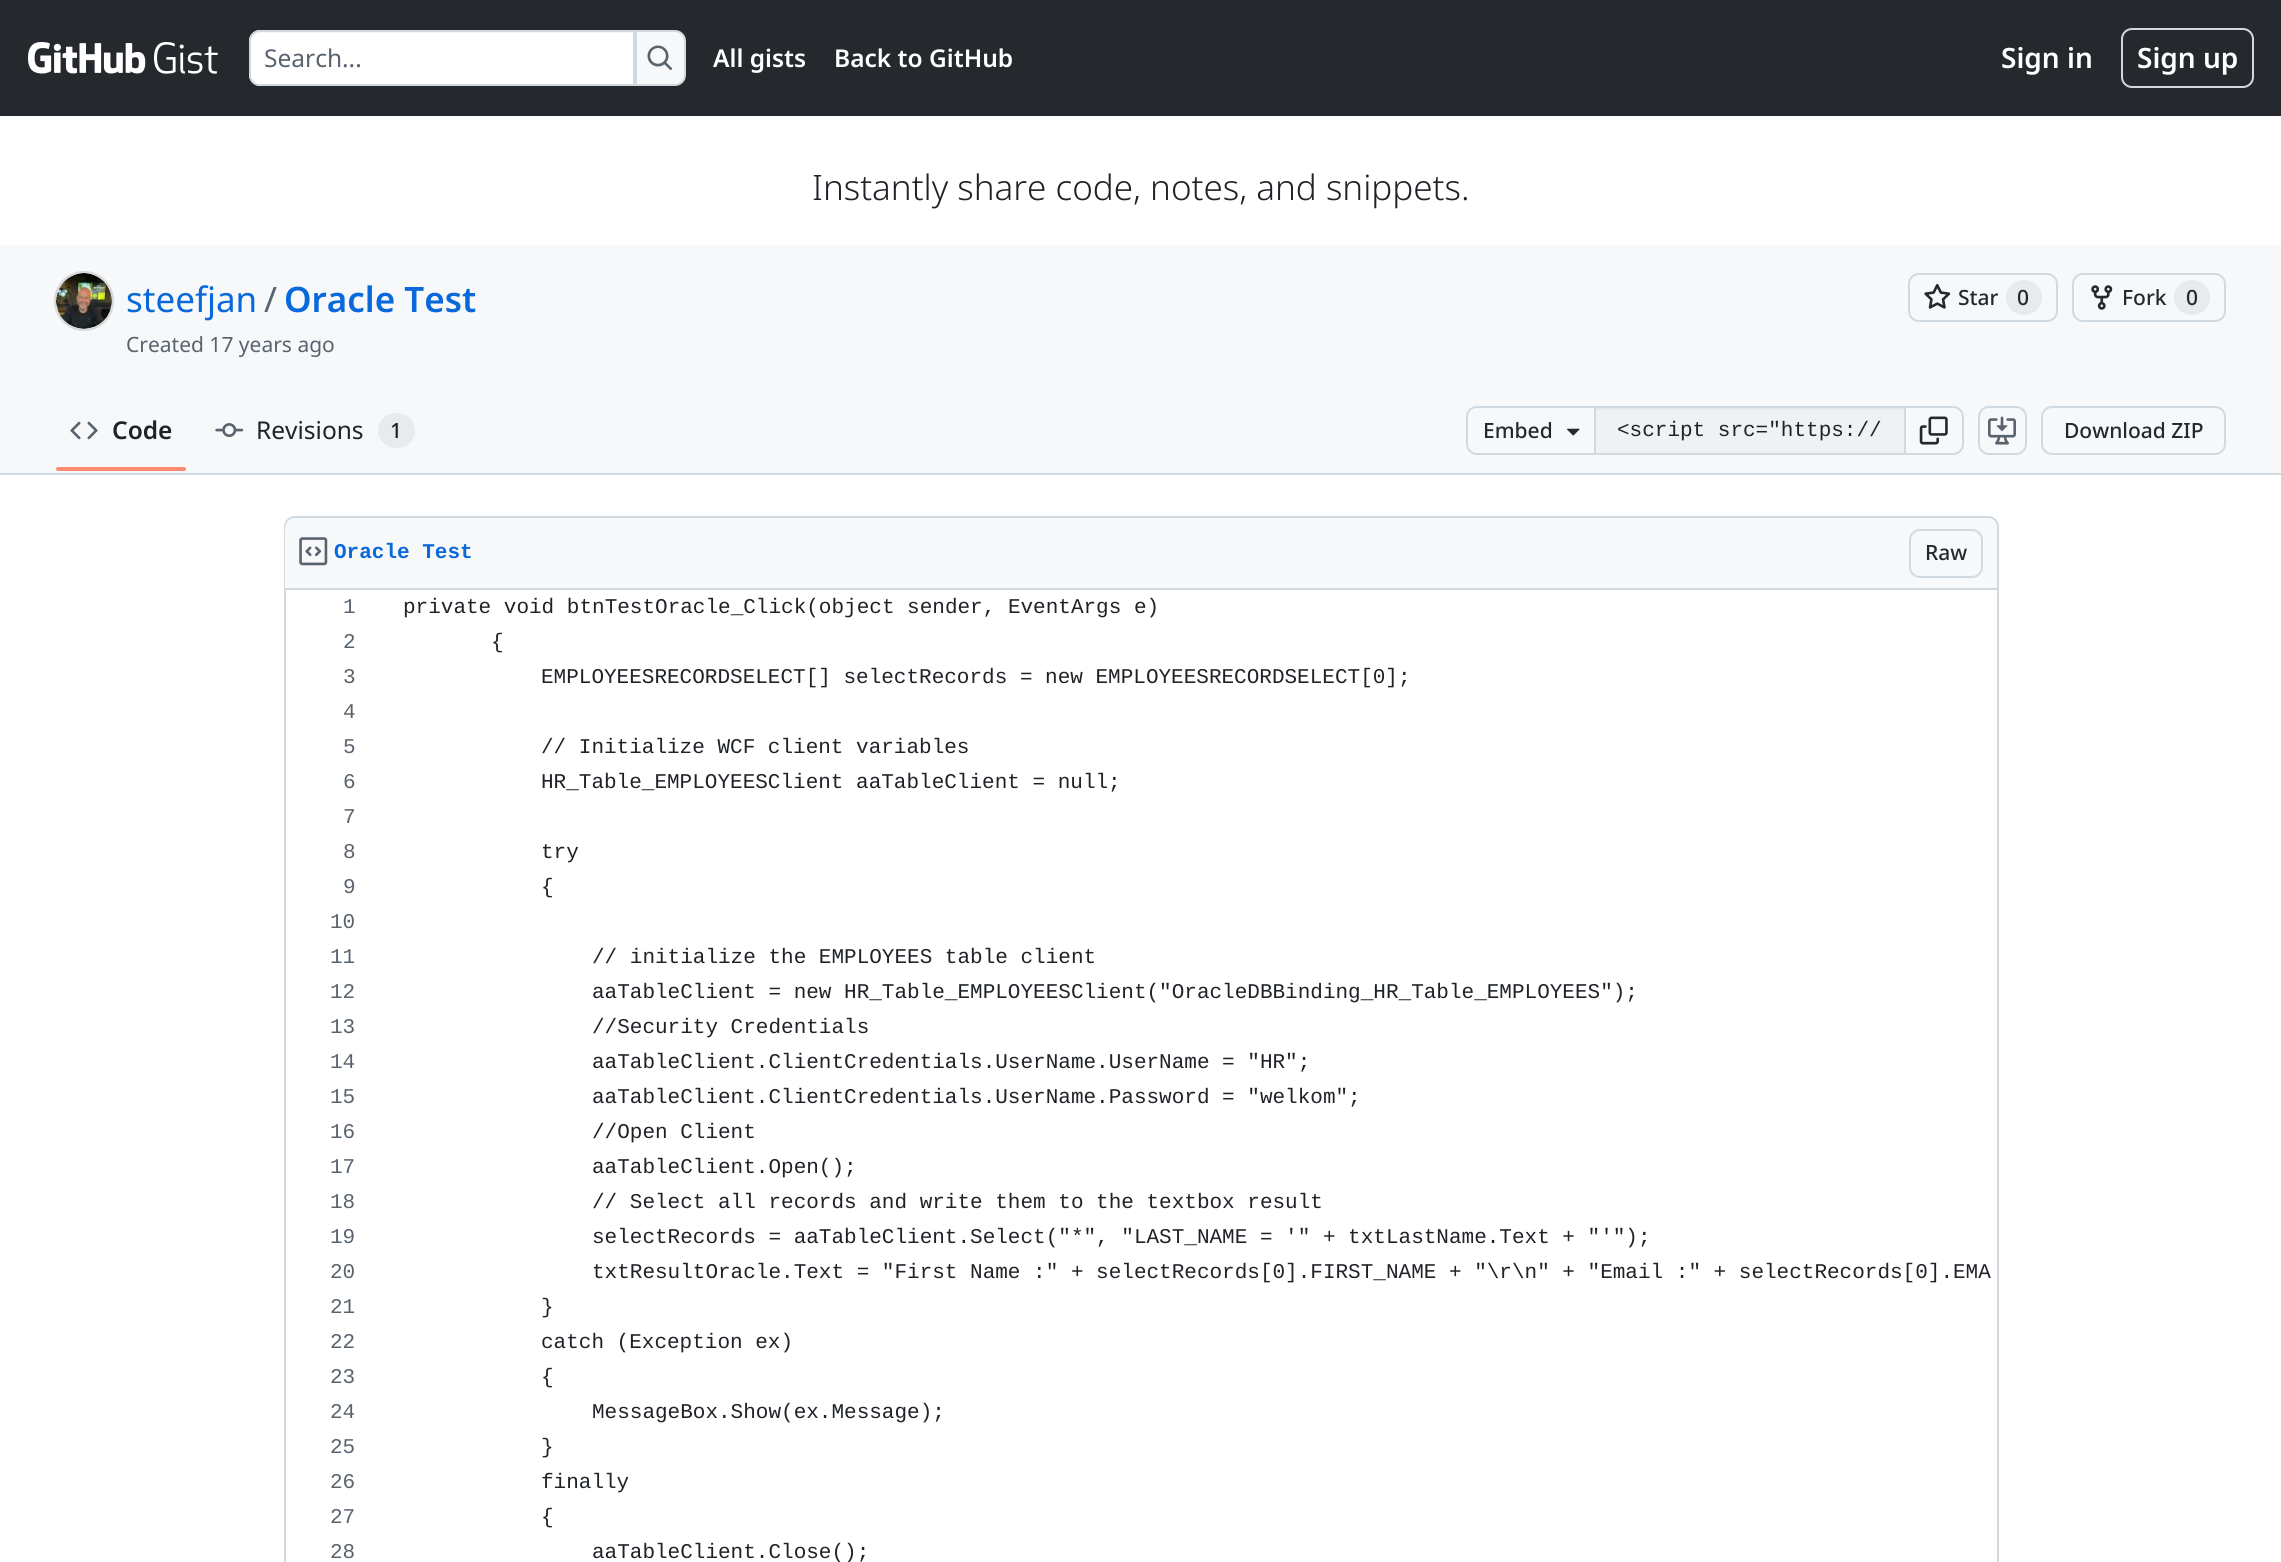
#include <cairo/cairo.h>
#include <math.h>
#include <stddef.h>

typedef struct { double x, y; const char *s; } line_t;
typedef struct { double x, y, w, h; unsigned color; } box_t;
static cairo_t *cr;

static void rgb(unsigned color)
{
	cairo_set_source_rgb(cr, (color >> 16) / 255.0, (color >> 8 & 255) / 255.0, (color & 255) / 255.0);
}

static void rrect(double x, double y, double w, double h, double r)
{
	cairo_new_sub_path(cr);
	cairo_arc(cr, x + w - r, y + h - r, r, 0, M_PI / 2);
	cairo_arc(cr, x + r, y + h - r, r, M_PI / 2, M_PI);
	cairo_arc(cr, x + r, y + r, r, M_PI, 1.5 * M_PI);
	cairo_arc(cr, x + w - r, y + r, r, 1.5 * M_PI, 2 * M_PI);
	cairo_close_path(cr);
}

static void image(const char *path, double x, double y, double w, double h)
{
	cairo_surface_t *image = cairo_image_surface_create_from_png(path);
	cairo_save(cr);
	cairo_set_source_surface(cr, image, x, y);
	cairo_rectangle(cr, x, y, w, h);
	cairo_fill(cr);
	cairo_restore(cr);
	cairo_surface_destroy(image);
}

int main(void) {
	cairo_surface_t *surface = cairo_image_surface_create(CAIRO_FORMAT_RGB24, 2281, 1562);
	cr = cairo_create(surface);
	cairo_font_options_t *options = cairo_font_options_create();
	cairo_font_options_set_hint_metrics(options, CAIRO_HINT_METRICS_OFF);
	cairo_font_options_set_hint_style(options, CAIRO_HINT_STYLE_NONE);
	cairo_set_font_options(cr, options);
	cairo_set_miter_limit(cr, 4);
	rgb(0xffffff);
	cairo_paint(cr);
	rgb(0x25292e);
	cairo_rectangle(cr, 0, 0, 2281, 116);
	cairo_fill(cr);
	image("img/1.png", 28, 42, 118, 32);
	image("img/2.png", 154, 42, 64, 32);
	rgb(0xffffff);
	cairo_new_path(cr);
	cairo_move_to(cr, 260, 30);
	cairo_line_to(cr, 635, 30);
	cairo_line_to(cr, 635, 86);
	cairo_line_to(cr, 260, 86);
	cairo_curve_to(cr, 254, 86, 249, 81, 249, 75);
	cairo_line_to(cr, 249, 41);
	cairo_curve_to(cr, 249, 35, 254, 30, 260, 30);
	cairo_close_path(cr);
	cairo_fill(cr);
	rgb(0xf6f6f6);
	cairo_new_path(cr);
	cairo_move_to(cr, 259, 33);
	cairo_line_to(cr, 634, 33);
	cairo_line_to(cr, 634, 32);
	cairo_line_to(cr, 259, 32);
	cairo_curve_to(cr, 254, 32, 250, 36, 250, 41);
	cairo_line_to(cr, 250, 42);
	cairo_curve_to(cr, 250, 37, 254, 33, 259, 33);
	cairo_close_path(cr);
	cairo_fill(cr);
	cairo_new_path(cr);
	cairo_move_to(cr, 260, 31);
	cairo_line_to(cr, 634, 31);
	cairo_line_to(cr, 634, 85);
	cairo_line_to(cr, 260, 85);
	cairo_curve_to(cr, 254.5, 85, 250, 80.5, 250, 75);
	cairo_line_to(cr, 250, 41);
	cairo_curve_to(cr, 250, 35.5, 254.5, 31, 260, 31);
	cairo_close_path(cr);
	rgb(0xd1d9e0);
	cairo_stroke(cr);
	rgb(0xf6f8fa);
	cairo_new_path(cr);
	cairo_move_to(cr, 636, 31);
	cairo_line_to(cr, 675, 31);
	cairo_curve_to(cr, 680.5, 31, 685, 35.5, 685, 41);
	cairo_line_to(cr, 685, 75);
	cairo_curve_to(cr, 685, 80.5, 680.5, 85, 675, 85);
	cairo_line_to(cr, 636, 85);
	cairo_close_path(cr);
	cairo_fill_preserve(cr);
	rgb(0xd1d9e0);
	cairo_stroke(cr);
	image("img/3.png", 647, 45, 25, 25);
	rrect(2122, 29, 131, 58, 10);
	cairo_stroke(cr);
	rgb(0xf6f8fa);
	cairo_rectangle(cr, 0, 245, 2281, 228);
	cairo_fill(cr);
	rgb(0xd1d9e0);
	cairo_rectangle(cr, 0, 473, 2281, 2);
	cairo_fill(cr);
	cairo_arc(cr, 84, 301, 29, 0, 2 * M_PI);
	rgb(0xd6d8db);
	cairo_stroke(cr);
	rgb(0xffffff);
	cairo_arc(cr, 84, 301, 28, 0, 2 * M_PI);
	cairo_fill(cr);
	image("img/4.png", 56, 273, 56, 56);
	rrect(1909, 274, 148, 47, 10);
	rgb(0xd1d9e0);
	cairo_stroke(cr);
	image("img/5.png", 1924, 284, 27, 25);
	rgb(0xe8ebee);
	rrect(2006, 280, 36, 35, 17.5);
	cairo_fill(cr);
	rrect(2073, 274, 152, 47, 10);
	rgb(0xd1d9e0);
	cairo_stroke(cr);
	image("img/6.png", 2091, 285, 22, 25);
	rgb(0xe8ebee);
	rrect(2174, 280, 36, 35, 17.5);
	cairo_fill(cr);
	image("img/7.png", 70, 421, 28, 19);
	rgb(0xfd8c73);
	rrect(56, 467, 130, 4, 2);
	cairo_fill(cr);
	image("img/8.png", 215, 423, 29, 15);
	rgb(0xe8ebee);
	rrect(378, 413, 37, 35, 17.5);
	cairo_fill(cr);
	rgb(0xd1d9e0);
	cairo_set_fill_rule(cr, CAIRO_FILL_RULE_EVEN_ODD);
	cairo_new_path(cr);
	cairo_move_to(cr, 1477, 406);
	cairo_line_to(cr, 1594, 406);
	cairo_line_to(cr, 1594, 455);
	cairo_line_to(cr, 1477, 455);
	cairo_curve_to(cr, 1471, 455, 1466, 450, 1466, 444);
	cairo_line_to(cr, 1466, 416);
	cairo_curve_to(cr, 1466, 411, 1471, 406, 1477, 406);
	cairo_close_path(cr);
	cairo_move_to(cr, 1477, 408);
	cairo_line_to(cr, 1594, 408);
	cairo_line_to(cr, 1594, 453);
	cairo_line_to(cr, 1477, 453);
	cairo_curve_to(cr, 1472, 453, 1468, 449, 1468, 444);
	cairo_line_to(cr, 1468, 416);
	cairo_curve_to(cr, 1468, 412, 1472, 408, 1477, 408);
	cairo_close_path(cr);
	cairo_fill(cr);
	image("img/9.png", 1566, 428, 14, 8);
	{
		static const box_t items[] = {
			{1596, 410, 308, 43, 0xeff2f5},
			{1596, 408, 308, 2, 0xe7eaed},
			{1594, 406, 310, 2, 0xd1d9e0},
			{1594, 453, 310, 2, 0xd1d9e0},
			{1594, 406, 2, 49, 0xd1d9e0},
		};
		for (size_t i = 0; i < sizeof items / sizeof *items; i++) {
			rgb(items[i].color);
			cairo_rectangle(cr, items[i].x, items[i].y, items[i].w, items[i].h);
			cairo_fill(cr);
		}
	}
	cairo_new_path(cr);
	cairo_move_to(cr, 1905, 407);
	cairo_line_to(cr, 1953, 407);
	cairo_curve_to(cr, 1958.5, 407, 1963, 411.5, 1963, 417);
	cairo_line_to(cr, 1963, 444);
	cairo_curve_to(cr, 1963, 449.5, 1958.5, 454, 1953, 454);
	cairo_line_to(cr, 1905, 454);
	cairo_close_path(cr);
	cairo_stroke(cr);
	image("img/10.png", 1919, 416, 29, 29);
	rrect(1979, 407, 47, 47, 10);
	cairo_stroke(cr);
	image("img/11.png", 1988, 416, 28, 29);
	rrect(2042, 407, 183, 47, 10);
	cairo_stroke(cr);
	rrect(285, 517, 1713, 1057, 10);
	cairo_stroke(cr);
	rgb(0xf6f8fa);
	cairo_new_path(cr);
	cairo_move_to(cr, 296, 518);
	cairo_line_to(cr, 1986, 518);
	cairo_curve_to(cr, 1992, 518, 1997, 523, 1997, 529);
	cairo_line_to(cr, 1997, 590);
	cairo_line_to(cr, 285, 590);
	cairo_line_to(cr, 285, 529);
	cairo_curve_to(cr, 285, 523, 290, 518, 296, 518);
	cairo_close_path(cr);
	cairo_fill(cr);
	rgb(0xd1d9e0);
	cairo_rectangle(cr, 285, 588, 1712, 2);
	cairo_fill(cr);
	image("img/12.png", 299, 537, 29, 29);
	rrect(1910, 530, 72, 47, 10);
	cairo_stroke(cr);
	cairo_select_font_face(cr, "Noto Sans", CAIRO_FONT_SLANT_NORMAL, CAIRO_FONT_WEIGHT_NORMAL);
	cairo_set_font_size(cr, 24.5);
	rgb(0x59636e);
	cairo_move_to(cr, 264, 67);
	cairo_show_text(cr, "Search...");
	cairo_select_font_face(cr, "Noto Sans SemiBold", CAIRO_FONT_SLANT_NORMAL, CAIRO_FONT_WEIGHT_NORMAL);
	rgb(0xffffff);
	cairo_move_to(cr, 713, 67);
	cairo_show_text(cr, "All gists");
	cairo_move_to(cr, 834, 67);
	cairo_show_text(cr, "Back to GitHub");
	cairo_set_font_size(cr, 28);
	cairo_move_to(cr, 2001, 68);
	cairo_show_text(cr, "Sign in");
	cairo_move_to(cr, 2137, 68);
	cairo_show_text(cr, "Sign up");
	cairo_select_font_face(cr, "Noto Sans Light", CAIRO_FONT_SLANT_NORMAL, CAIRO_FONT_WEIGHT_NORMAL);
	cairo_set_font_size(cr, 35);
	rgb(0x1f2328);
	cairo_move_to(cr, 812, 200);
	cairo_show_text(cr, "Instantly share code, notes, and snippets.");
	cairo_select_font_face(cr, "Noto Sans", CAIRO_FONT_SLANT_NORMAL, CAIRO_FONT_WEIGHT_NORMAL);
	rgb(0x0969da);
	cairo_move_to(cr, 126, 312);
	cairo_show_text(cr, "steefjan");
	rgb(0x59636e);
	cairo_move_to(cr, 264, 312);
	cairo_show_text(cr, "/");
	cairo_select_font_face(cr, "Noto Sans SemiBold", CAIRO_FONT_SLANT_NORMAL, CAIRO_FONT_WEIGHT_NORMAL);
	rgb(0x0969da);
	cairo_move_to(cr, 284, 312);
	cairo_show_text(cr, "Oracle Test");
	cairo_select_font_face(cr, "Noto Sans", CAIRO_FONT_SLANT_NORMAL, CAIRO_FONT_WEIGHT_NORMAL);
	cairo_set_font_size(cr, 21);
	rgb(0x59636e);
	cairo_move_to(cr, 126, 352);
	cairo_show_text(cr, "Created 17 years ago");
	cairo_select_font_face(cr, "Noto Sans Medium", CAIRO_FONT_SLANT_NORMAL, CAIRO_FONT_WEIGHT_NORMAL);
	rgb(0x25292e);
	{
		static const line_t items[] = {
			{1958, 305, "Star"},
			{2017, 305, "0"},
			{2122, 305, "Fork"},
			{2186, 305, "0"},
		};
		for (size_t i = 0; i < sizeof items / sizeof *items; i++) {
			cairo_move_to(cr, items[i].x, items[i].y);
			cairo_show_text(cr, items[i].s);
		}
	}
	cairo_select_font_face(cr, "Noto Sans SemiBold", CAIRO_FONT_SLANT_NORMAL, CAIRO_FONT_WEIGHT_NORMAL);
	cairo_set_font_size(cr, 24.5);
	rgb(0x1f2328);
	cairo_move_to(cr, 112, 439);
	cairo_show_text(cr, "Code");
	cairo_select_font_face(cr, "Noto Sans", CAIRO_FONT_SLANT_NORMAL, CAIRO_FONT_WEIGHT_NORMAL);
	cairo_move_to(cr, 256, 439);
	cairo_show_text(cr, "Revisions");
	cairo_select_font_face(cr, "Noto Sans Medium", CAIRO_FONT_SLANT_NORMAL, CAIRO_FONT_WEIGHT_NORMAL);
	cairo_set_font_size(cr, 21);
	cairo_move_to(cr, 390, 438);
	cairo_show_text(cr, "1");
	rgb(0x25292e);
	cairo_move_to(cr, 1483, 438);
	cairo_show_text(cr, "Embed");
	cairo_select_font_face(cr, "Liberation Mono", CAIRO_FONT_SLANT_NORMAL, CAIRO_FONT_WEIGHT_NORMAL);
	rgb(0x1f2328);
	cairo_move_to(cr, 1617, 436);
	cairo_show_text(cr, "<script src=\"https://");
	cairo_select_font_face(cr, "Noto Sans Medium", CAIRO_FONT_SLANT_NORMAL, CAIRO_FONT_WEIGHT_NORMAL);
	rgb(0x25292e);
	cairo_move_to(cr, 2064, 438);
	cairo_show_text(cr, "Download ZIP");
	cairo_select_font_face(cr, "Liberation Mono", CAIRO_FONT_SLANT_NORMAL, CAIRO_FONT_WEIGHT_BOLD);
	rgb(0x0969da);
	cairo_move_to(cr, 334, 558);
	cairo_show_text(cr, "Oracle Test");
	cairo_select_font_face(cr, "Noto Sans Medium", CAIRO_FONT_SLANT_NORMAL, CAIRO_FONT_WEIGHT_NORMAL);
	rgb(0x25292e);
	cairo_move_to(cr, 1925, 560);
	cairo_show_text(cr, "Raw");
	cairo_select_font_face(cr, "Liberation Mono", CAIRO_FONT_SLANT_NORMAL, CAIRO_FONT_WEIGHT_NORMAL);
	rgb(0x59636e);
	cairo_move_to(cr, 343, 613);
	cairo_show_text(cr, "1");
	rgb(0x1f2328);
	cairo_move_to(cr, 403, 613);
	cairo_show_text(cr, "private void btnTestOracle_Click(object sender, EventArgs e)");
	rgb(0x59636e);
	cairo_move_to(cr, 343, 648);
	cairo_show_text(cr, "2");
	rgb(0x1f2328);
	cairo_move_to(cr, 491, 648);
	cairo_show_text(cr, "{");
	rgb(0x59636e);
	cairo_move_to(cr, 343, 683);
	cairo_show_text(cr, "3");
	rgb(0x1f2328);
	cairo_move_to(cr, 541, 683);
	cairo_show_text(cr, "EMPLOYEESRECORDSELECT[] selectRecords = new EMPLOYEESRECORDSELECT[0];");
	rgb(0x59636e);
	cairo_move_to(cr, 343, 718);
	cairo_show_text(cr, "4");
	cairo_move_to(cr, 343, 753);
	cairo_show_text(cr, "5");
	rgb(0x1f2328);
	cairo_move_to(cr, 541, 753);
	cairo_show_text(cr, "// Initialize WCF client variables");
	rgb(0x59636e);
	cairo_move_to(cr, 343, 788);
	cairo_show_text(cr, "6");
	rgb(0x1f2328);
	cairo_move_to(cr, 541, 788);
	cairo_show_text(cr, "HR_Table_EMPLOYEESClient aaTableClient = null;");
	rgb(0x59636e);
	cairo_move_to(cr, 343, 823);
	cairo_show_text(cr, "7");
	cairo_move_to(cr, 343, 858);
	cairo_show_text(cr, "8");
	rgb(0x1f2328);
	cairo_move_to(cr, 541, 858);
	cairo_show_text(cr, "try");
	rgb(0x59636e);
	cairo_move_to(cr, 343, 893);
	cairo_show_text(cr, "9");
	rgb(0x1f2328);
	cairo_move_to(cr, 541, 893);
	cairo_show_text(cr, "{");
	rgb(0x59636e);
	cairo_move_to(cr, 330, 928);
	cairo_show_text(cr, "10");
	cairo_move_to(cr, 330, 963);
	cairo_show_text(cr, "11");
	rgb(0x1f2328);
	cairo_move_to(cr, 592, 963);
	cairo_show_text(cr, "// initialize the EMPLOYEES table client");
	rgb(0x59636e);
	cairo_move_to(cr, 330, 998);
	cairo_show_text(cr, "12");
	rgb(0x1f2328);
	cairo_move_to(cr, 592, 998);
	cairo_show_text(cr, "aaTableClient = new HR_Table_EMPLOYEESClient(\"OracleDBBinding_HR_Table_EMPLOYEES\");");
	rgb(0x59636e);
	cairo_move_to(cr, 330, 1033);
	cairo_show_text(cr, "13");
	rgb(0x1f2328);
	cairo_move_to(cr, 592, 1033);
	cairo_show_text(cr, "//Security Credentials");
	rgb(0x59636e);
	cairo_move_to(cr, 330, 1068);
	cairo_show_text(cr, "14");
	rgb(0x1f2328);
	cairo_move_to(cr, 592, 1068);
	cairo_show_text(cr, "aaTableClient.ClientCredentials.UserName.UserName = \"HR\";");
	rgb(0x59636e);
	cairo_move_to(cr, 330, 1103);
	cairo_show_text(cr, "15");
	rgb(0x1f2328);
	cairo_move_to(cr, 592, 1103);
	cairo_show_text(cr, "aaTableClient.ClientCredentials.UserName.Password = \"welkom\";");
	rgb(0x59636e);
	cairo_move_to(cr, 330, 1138);
	cairo_show_text(cr, "16");
	rgb(0x1f2328);
	cairo_move_to(cr, 592, 1138);
	cairo_show_text(cr, "//Open Client");
	rgb(0x59636e);
	cairo_move_to(cr, 330, 1173);
	cairo_show_text(cr, "17");
	rgb(0x1f2328);
	cairo_move_to(cr, 592, 1173);
	cairo_show_text(cr, "aaTableClient.Open();");
	rgb(0x59636e);
	cairo_move_to(cr, 330, 1208);
	cairo_show_text(cr, "18");
	rgb(0x1f2328);
	cairo_move_to(cr, 592, 1208);
	cairo_show_text(cr, "// Select all records and write them to the textbox result");
	rgb(0x59636e);
	cairo_move_to(cr, 330, 1243);
	cairo_show_text(cr, "19");
	rgb(0x1f2328);
	cairo_move_to(cr, 592, 1243);
	cairo_show_text(cr, "selectRecords = aaTableClient.Select(\"*\", \"LAST_NAME = '\" + txtLastName.Text + \"'\");");
	rgb(0x59636e);
	cairo_move_to(cr, 330, 1278);
	cairo_show_text(cr, "20");
	rgb(0x1f2328);
	cairo_move_to(cr, 592, 1278);
	cairo_show_text(cr, "txtResultOracle.Text = \"First Name :\" + selectRecords[0].FIRST_NAME + \"\\r\\n\" + \"Email :\" + selectRecords[0].EMA");
	rgb(0x59636e);
	cairo_move_to(cr, 330, 1313);
	cairo_show_text(cr, "21");
	rgb(0x1f2328);
	cairo_move_to(cr, 541, 1313);
	cairo_show_text(cr, "}");
	rgb(0x59636e);
	cairo_move_to(cr, 330, 1348);
	cairo_show_text(cr, "22");
	rgb(0x1f2328);
	cairo_move_to(cr, 541, 1348);
	cairo_show_text(cr, "catch (Exception ex)");
	rgb(0x59636e);
	cairo_move_to(cr, 330, 1383);
	cairo_show_text(cr, "23");
	rgb(0x1f2328);
	cairo_move_to(cr, 541, 1383);
	cairo_show_text(cr, "{");
	rgb(0x59636e);
	cairo_move_to(cr, 330, 1418);
	cairo_show_text(cr, "24");
	rgb(0x1f2328);
	cairo_move_to(cr, 592, 1418);
	cairo_show_text(cr, "MessageBox.Show(ex.Message);");
	rgb(0x59636e);
	cairo_move_to(cr, 330, 1453);
	cairo_show_text(cr, "25");
	rgb(0x1f2328);
	cairo_move_to(cr, 541, 1453);
	cairo_show_text(cr, "}");
	rgb(0x59636e);
	cairo_move_to(cr, 330, 1488);
	cairo_show_text(cr, "26");
	rgb(0x1f2328);
	cairo_move_to(cr, 541, 1488);
	cairo_show_text(cr, "finally");
	rgb(0x59636e);
	cairo_move_to(cr, 330, 1523);
	cairo_show_text(cr, "27");
	rgb(0x1f2328);
	cairo_move_to(cr, 541, 1523);
	cairo_show_text(cr, "{");
	rgb(0x59636e);
	cairo_move_to(cr, 330, 1558);
	cairo_show_text(cr, "28");
	rgb(0x1f2328);
	cairo_move_to(cr, 592, 1558);
	cairo_show_text(cr, "aaTableClient.Close();");
	cairo_surface_write_to_png(surface, "page.png");
	cairo_font_options_destroy(options);
	cairo_destroy(cr);
	cairo_surface_destroy(surface);
	return 0;
}
